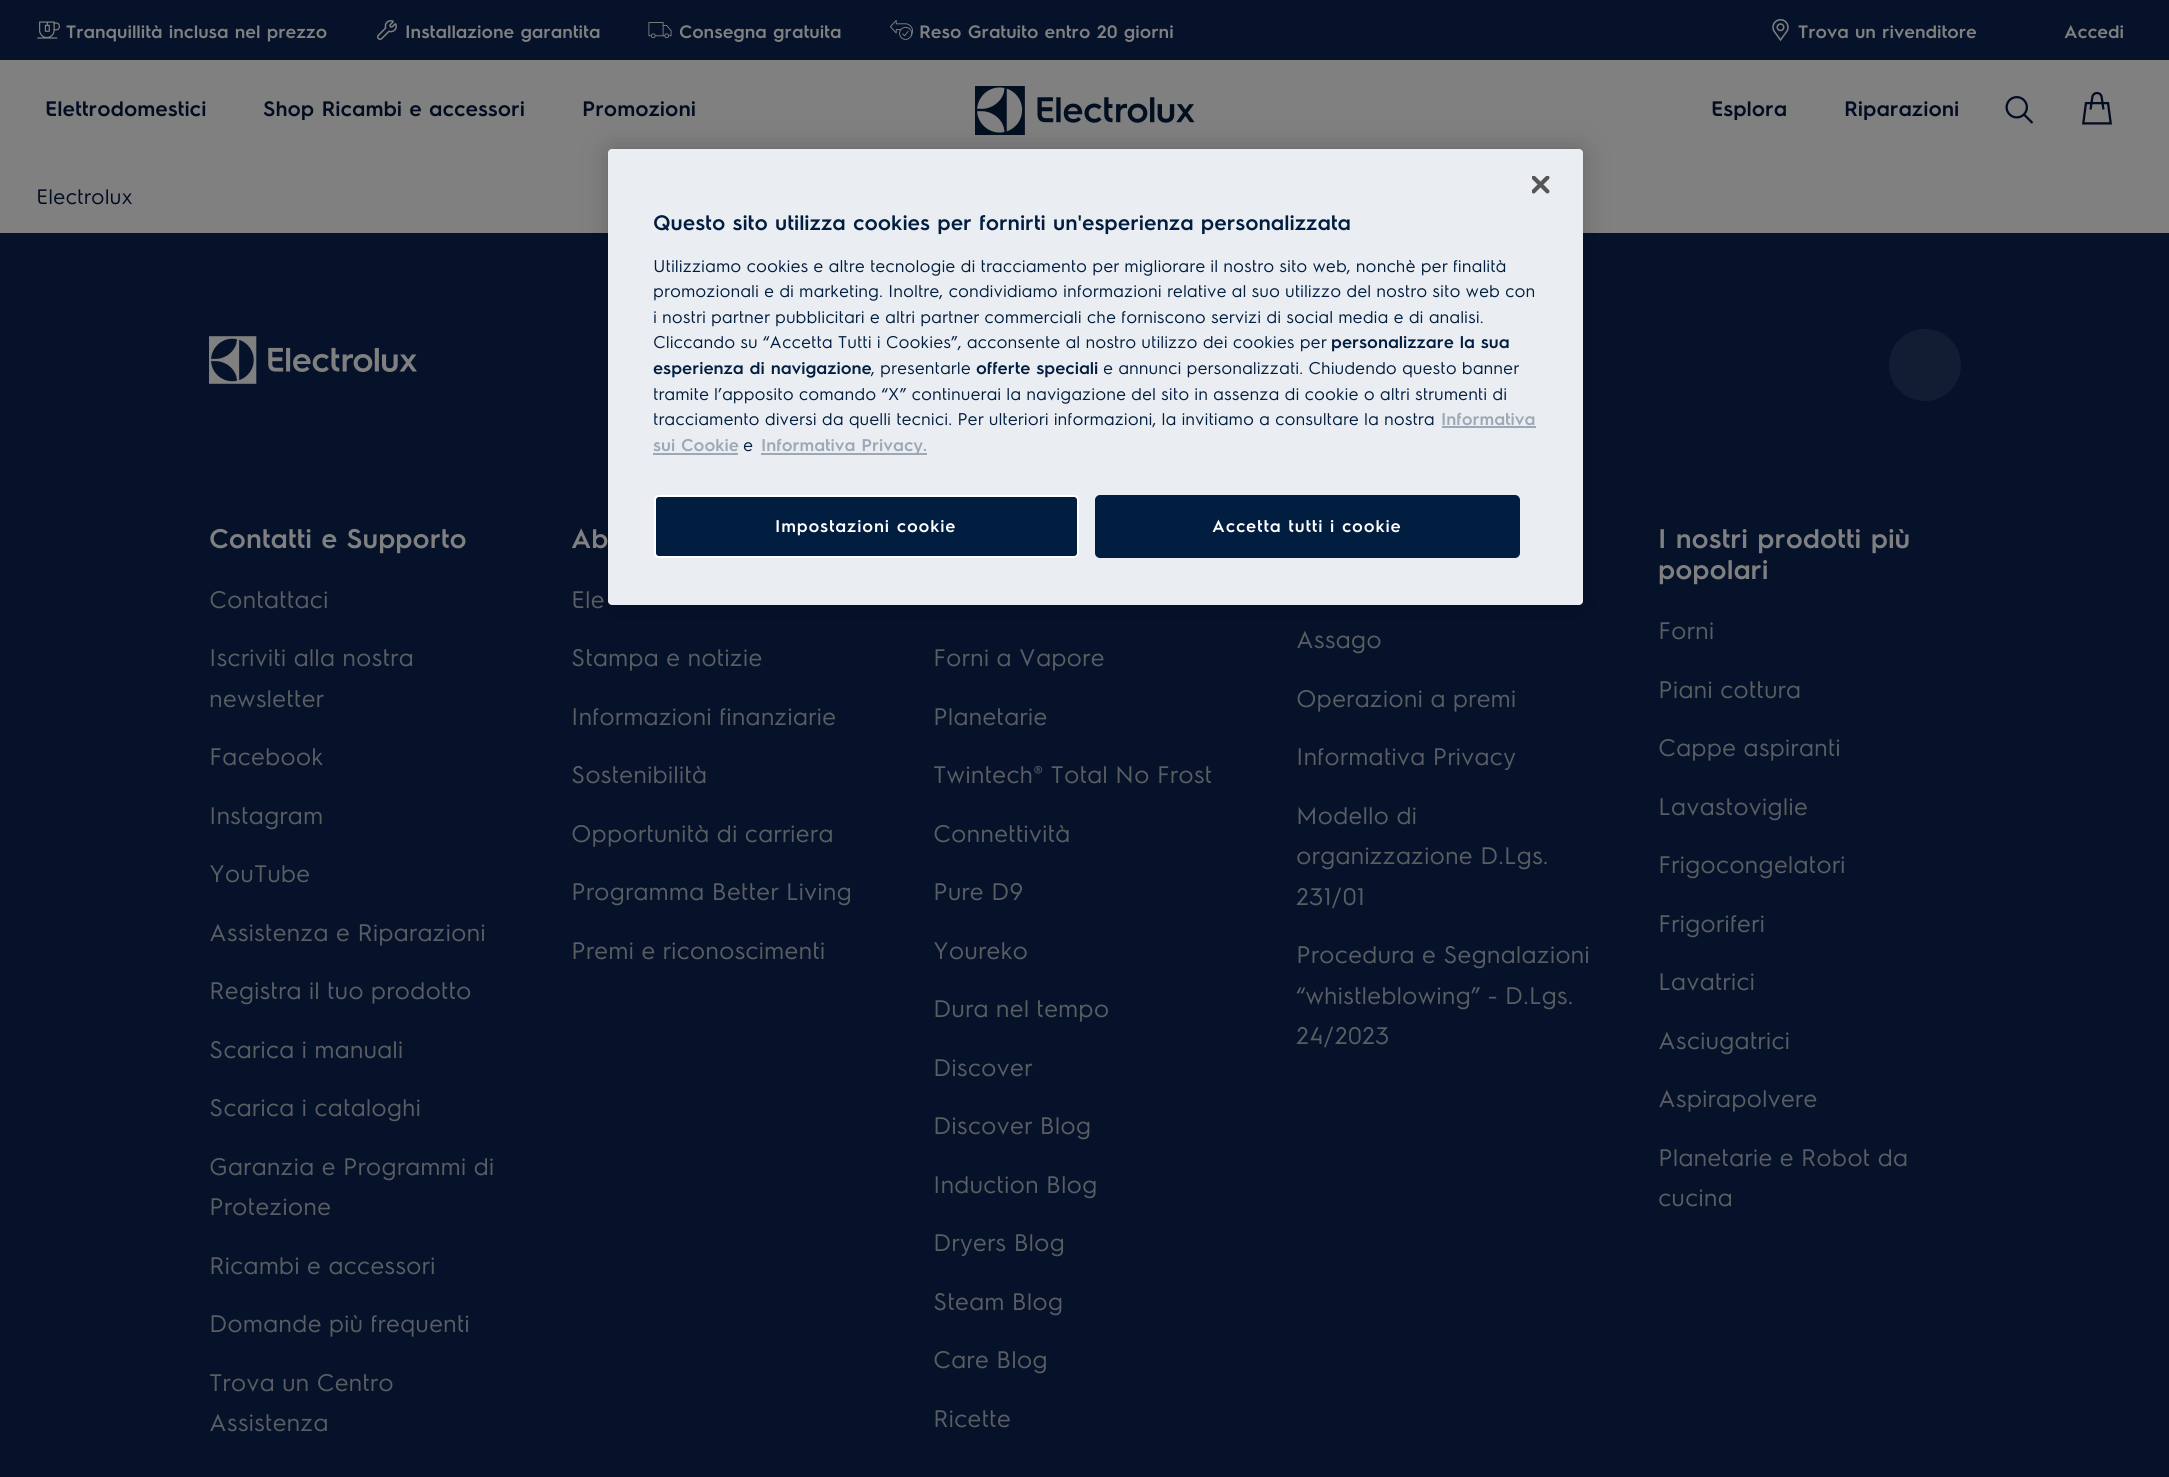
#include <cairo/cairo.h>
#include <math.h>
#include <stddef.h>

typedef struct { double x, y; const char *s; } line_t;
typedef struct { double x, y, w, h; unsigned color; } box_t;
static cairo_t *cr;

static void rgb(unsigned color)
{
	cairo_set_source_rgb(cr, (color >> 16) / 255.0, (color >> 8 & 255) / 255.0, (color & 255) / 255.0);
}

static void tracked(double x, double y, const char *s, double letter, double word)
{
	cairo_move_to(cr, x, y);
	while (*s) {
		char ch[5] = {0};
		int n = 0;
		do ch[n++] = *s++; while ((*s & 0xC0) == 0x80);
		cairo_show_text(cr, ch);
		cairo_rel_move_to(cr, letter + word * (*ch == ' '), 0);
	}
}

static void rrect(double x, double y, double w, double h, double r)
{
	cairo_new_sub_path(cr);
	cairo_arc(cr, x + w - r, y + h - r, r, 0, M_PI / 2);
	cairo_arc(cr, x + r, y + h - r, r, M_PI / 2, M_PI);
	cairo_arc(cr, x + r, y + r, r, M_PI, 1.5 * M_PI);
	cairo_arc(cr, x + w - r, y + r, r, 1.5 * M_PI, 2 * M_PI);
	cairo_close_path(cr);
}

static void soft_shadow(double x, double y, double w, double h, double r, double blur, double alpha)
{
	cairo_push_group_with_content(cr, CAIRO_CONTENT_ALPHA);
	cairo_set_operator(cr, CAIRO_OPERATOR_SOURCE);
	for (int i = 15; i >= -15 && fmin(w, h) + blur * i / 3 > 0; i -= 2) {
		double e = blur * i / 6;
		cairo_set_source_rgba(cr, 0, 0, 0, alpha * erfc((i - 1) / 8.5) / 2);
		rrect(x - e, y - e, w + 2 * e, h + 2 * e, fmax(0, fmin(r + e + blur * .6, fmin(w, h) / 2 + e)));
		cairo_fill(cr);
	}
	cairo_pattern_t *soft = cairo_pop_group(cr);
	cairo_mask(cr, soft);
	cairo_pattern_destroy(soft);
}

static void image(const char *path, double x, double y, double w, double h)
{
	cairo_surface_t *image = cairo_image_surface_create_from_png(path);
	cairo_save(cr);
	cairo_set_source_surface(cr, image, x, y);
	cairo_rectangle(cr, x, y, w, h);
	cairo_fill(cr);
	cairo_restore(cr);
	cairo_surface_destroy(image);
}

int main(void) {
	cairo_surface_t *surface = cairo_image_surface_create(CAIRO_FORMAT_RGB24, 2169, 1477);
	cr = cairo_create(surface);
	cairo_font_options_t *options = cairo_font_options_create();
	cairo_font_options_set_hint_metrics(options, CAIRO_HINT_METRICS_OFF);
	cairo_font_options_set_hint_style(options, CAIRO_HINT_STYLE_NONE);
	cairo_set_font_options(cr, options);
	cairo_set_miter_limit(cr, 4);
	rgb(0x808080);
	cairo_paint(cr);
	rgb(0x05122a);
	cairo_rectangle(cr, 0, 0, 2169, 60);
	cairo_fill(cr);
	image("img/1.png", 37, 21, 23, 18);
	image("img/2.png", 377, 20, 20, 20);
	image("img/3.png", 648, 22, 24, 17);
	image("img/4.png", 890, 19, 23, 21);
	image("img/5.png", 1772, 19, 17, 23);
	image("img/6.png", 975, 86, 220, 49);
	image("img/7.png", 2005, 96, 29, 28);
	image("img/8.png", 2082, 92, 30, 33);
	cairo_rectangle(cr, 0, 233, 2169, 1244);
	cairo_fill(cr);
	image("img/9.png", 209, 336, 208, 48);
	rgb(0x121d33);
	cairo_arc(cr, 1925, 365, 36, 0, 2 * M_PI);
	cairo_fill(cr);
	rgb(0x000000);
	soft_shadow(608, 149, 975, 456, 4, 13.5, 0.2);
	rgb(0xeaeef2);
	rrect(608, 149, 975, 456, 4);
	cairo_fill(cr);
	image("img/10.png", 1532, 176, 18, 18);
	{
		static const box_t items[] = {
			{1442, 426, 94, 2, 0x9ca8b6},
			{653, 453, 85, 2, 0x9ca8b6},
			{761, 453, 166, 2, 0x9ca8b6},
		};
		for (size_t i = 0; i < sizeof items / sizeof *items; i++) {
			rgb(items[i].color);
			cairo_rectangle(cr, items[i].x, items[i].y, items[i].w, items[i].h);
			cairo_fill(cr);
		}
	}
	rgb(0x011e41);
	rrect(655, 496, 423, 61, 4);
	cairo_fill_preserve(cr);
	rgb(0xffffff);
	cairo_stroke(cr);
	rgb(0x011e41);
	rrect(1096, 496, 423, 61, 4);
	cairo_fill_preserve(cr);
	cairo_stroke(cr);
	cairo_select_font_face(cr, "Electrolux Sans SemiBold", CAIRO_FONT_SLANT_NORMAL, CAIRO_FONT_WEIGHT_NORMAL);
	cairo_set_font_size(cr, 18);
	rgb(0x808080);
	{
		static const line_t items[] = {
			{66, 38, "Tranquillità inclusa nel prezzo"},
			{405, 38, "Installazione garantita"},
			{679, 38, "Consegna gratuita"},
			{919, 38, "Reso Gratuito entro 20 giorni"},
			{1798, 38, "Trova un rivenditore"},
			{2064, 38, "Accedi"},
		};
		for (size_t i = 0; i < sizeof items / sizeof *items; i++) {
			cairo_move_to(cr, items[i].x, items[i].y);
			cairo_show_text(cr, items[i].s);
		}
	}
	cairo_set_font_size(cr, 21);
	rgb(0x020c20);
	{
		static const line_t items[] = {
			{45, 116, "Elettrodomestici"},
			{263, 116, "Shop Ricambi e accessori"},
			{582, 116, "Promozioni"},
			{1711, 116, "Esplora"},
			{1844, 116, "Riparazioni"},
		};
		for (size_t i = 0; i < sizeof items / sizeof *items; i++) {
			cairo_move_to(cr, items[i].x, items[i].y);
			cairo_show_text(cr, items[i].s);
		}
	}
	cairo_select_font_face(cr, "Electrolux Sans", CAIRO_FONT_SLANT_NORMAL, CAIRO_FONT_WEIGHT_NORMAL);
	cairo_move_to(cr, 36, 204);
	cairo_show_text(cr, "Electrolux");
	cairo_select_font_face(cr, "Electrolux Sans SemiBold", CAIRO_FONT_SLANT_NORMAL, CAIRO_FONT_WEIGHT_NORMAL);
	cairo_set_font_size(cr, 27);
	rgb(0x808080);
	cairo_move_to(cr, 209, 548);
	cairo_show_text(cr, "Contatti e Supporto");
	cairo_select_font_face(cr, "Electrolux Sans", CAIRO_FONT_SLANT_NORMAL, CAIRO_FONT_WEIGHT_NORMAL);
	cairo_set_font_size(cr, 24);
	rgb(0x595e63);
	{
		static const line_t items[] = {
			{209, 608, "Contattaci"},
			{209, 666, "Iscriviti alla nostra"},
			{209, 707, "newsletter"},
			{209, 765, "Facebook"},
			{209, 824, "Instagram"},
			{209, 882, "YouTube"},
			{209, 941, "Assistenza e Riparazioni"},
			{209, 999, "Registra il tuo prodotto"},
			{209, 1058, "Scarica i manuali"},
			{209, 1116, "Scarica i cataloghi"},
			{209, 1175, "Garanzia e Programmi di"},
			{209, 1215, "Protezione"},
			{209, 1274, "Ricambi e accessori"},
			{209, 1332, "Domande più frequenti"},
			{209, 1391, "Trova un Centro"},
			{209, 1431, "Assistenza"},
		};
		for (size_t i = 0; i < sizeof items / sizeof *items; i++) {
			cairo_move_to(cr, items[i].x, items[i].y);
			cairo_show_text(cr, items[i].s);
		}
	}
	cairo_select_font_face(cr, "Electrolux Sans SemiBold", CAIRO_FONT_SLANT_NORMAL, CAIRO_FONT_WEIGHT_NORMAL);
	cairo_set_font_size(cr, 27);
	rgb(0x808080);
	cairo_move_to(cr, 571, 548);
	cairo_show_text(cr, "Ab");
	cairo_select_font_face(cr, "Electrolux Sans", CAIRO_FONT_SLANT_NORMAL, CAIRO_FONT_WEIGHT_NORMAL);
	cairo_set_font_size(cr, 24);
	rgb(0x595e63);
	{
		static const line_t items[] = {
			{571, 608, "Ele"},
			{571, 666, "Stampa e notizie"},
			{571, 725, "Informazioni finanziarie"},
			{571, 783, "Sostenibilità"},
			{571, 842, "Opportunità di carriera"},
			{571, 900, "Programma Better Living"},
			{571, 959, "Premi e riconoscimenti"},
			{933, 666, "Forni a Vapore"},
			{933, 725, "Planetarie"},
			{933, 783, "Twintech® Total No Frost"},
			{933, 842, "Connettività"},
			{933, 900, "Pure D9"},
			{933, 959, "Youreko"},
			{933, 1017, "Dura nel tempo"},
			{933, 1076, "Discover"},
			{933, 1134, "Discover Blog"},
			{933, 1193, "Induction Blog"},
			{933, 1251, "Dryers Blog"},
			{933, 1310, "Steam Blog"},
			{933, 1368, "Care Blog"},
			{933, 1427, "Ricette"},
			{1296, 648, "Assago"},
			{1296, 707, "Operazioni a premi"},
			{1296, 765, "Informativa Privacy"},
			{1296, 824, "Modello di"},
			{1296, 864, "organizzazione D.Lgs."},
			{1296, 905, "231/01"},
			{1296, 963, "Procedura e Segnalazioni"},
			{1296, 1004, "“whistleblowing” - D.Lgs."},
			{1296, 1044, "24/2023"},
		};
		for (size_t i = 0; i < sizeof items / sizeof *items; i++) {
			cairo_move_to(cr, items[i].x, items[i].y);
			cairo_show_text(cr, items[i].s);
		}
	}
	cairo_select_font_face(cr, "Electrolux Sans SemiBold", CAIRO_FONT_SLANT_NORMAL, CAIRO_FONT_WEIGHT_NORMAL);
	cairo_set_font_size(cr, 27);
	rgb(0x808080);
	cairo_move_to(cr, 1658, 548);
	cairo_show_text(cr, "I nostri prodotti più");
	cairo_move_to(cr, 1658, 579);
	cairo_show_text(cr, "popolari");
	cairo_select_font_face(cr, "Electrolux Sans", CAIRO_FONT_SLANT_NORMAL, CAIRO_FONT_WEIGHT_NORMAL);
	cairo_set_font_size(cr, 24);
	rgb(0x595e63);
	{
		static const line_t items[] = {
			{1658, 639, "Forni"},
			{1658, 698, "Piani cottura"},
			{1658, 756, "Cappe aspiranti"},
			{1658, 815, "Lavastoviglie"},
			{1658, 873, "Frigocongelatori"},
			{1658, 932, "Frigoriferi"},
			{1658, 990, "Lavatrici"},
			{1658, 1049, "Asciugatrici"},
			{1658, 1107, "Aspirapolvere"},
			{1658, 1166, "Planetarie e Robot da"},
			{1658, 1206, "cucina"},
		};
		for (size_t i = 0; i < sizeof items / sizeof *items; i++) {
			cairo_move_to(cr, items[i].x, items[i].y);
			cairo_show_text(cr, items[i].s);
		}
	}
	cairo_select_font_face(cr, "Electrolux Sans SemiBold", CAIRO_FONT_SLANT_NORMAL, CAIRO_FONT_WEIGHT_NORMAL);
	cairo_set_font_size(cr, 21);
	rgb(0x011e41);
	cairo_move_to(cr, 653, 230);
	cairo_show_text(cr, "Questo sito utilizza cookies per fornirti un'esperienza personalizzata");
	cairo_select_font_face(cr, "Electrolux Sans", CAIRO_FONT_SLANT_NORMAL, CAIRO_FONT_WEIGHT_NORMAL);
	cairo_set_font_size(cr, 17.07);
	{
		static const line_t items[] = {
			{653, 272, "Utilizziamo cookies e altre tecnologie di tracciamento per migliorare il nostro sito web, nonchè per finalità"},
			{653, 297, "promozionali e di marketing. Inoltre, condividiamo informazioni relative al suo utilizzo del nostro sito web con"},
			{653, 323, "i nostri partner pubblicitari e altri partner commerciali che forniscono servizi di social media e di analisi."},
			{653, 348, "Cliccando su “Accetta Tutti i Cookies”, acconsente al nostro utilizzo dei cookies per"},
		};
		for (size_t i = 0; i < sizeof items / sizeof *items; i++) {
			cairo_move_to(cr, items[i].x, items[i].y);
			cairo_show_text(cr, items[i].s);
		}
	}
	cairo_select_font_face(cr, "Electrolux Sans SemiBold", CAIRO_FONT_SLANT_NORMAL, CAIRO_FONT_WEIGHT_NORMAL);
	cairo_move_to(cr, 1331, 348);
	cairo_show_text(cr, "personalizzare la sua");
	cairo_move_to(cr, 653, 374);
	cairo_show_text(cr, "esperienza di navigazione");
	cairo_select_font_face(cr, "Electrolux Sans", CAIRO_FONT_SLANT_NORMAL, CAIRO_FONT_WEIGHT_NORMAL);
	cairo_move_to(cr, 871, 374);
	cairo_show_text(cr, ", presentarle");
	cairo_select_font_face(cr, "Electrolux Sans SemiBold", CAIRO_FONT_SLANT_NORMAL, CAIRO_FONT_WEIGHT_NORMAL);
	cairo_move_to(cr, 976, 374);
	cairo_show_text(cr, "offerte speciali");
	cairo_select_font_face(cr, "Electrolux Sans", CAIRO_FONT_SLANT_NORMAL, CAIRO_FONT_WEIGHT_NORMAL);
	{
		static const line_t items[] = {
			{1103, 374, "e annunci personalizzati. Chiudendo questo banner"},
			{653, 400, "tramite l’apposito comando “X” continuerai la navigazione del sito in assenza di cookie o altri strumenti di"},
			{653, 425, "tracciamento diversi da quelli tecnici. Per ulteriori informazioni, la invitiamo a consultare la nostra"},
		};
		for (size_t i = 0; i < sizeof items / sizeof *items; i++) {
			cairo_move_to(cr, items[i].x, items[i].y);
			cairo_show_text(cr, items[i].s);
		}
	}
	cairo_select_font_face(cr, "Electrolux Sans SemiBold", CAIRO_FONT_SLANT_NORMAL, CAIRO_FONT_WEIGHT_NORMAL);
	rgb(0x9ca8b6);
	cairo_move_to(cr, 1441, 425);
	cairo_show_text(cr, "Informativa");
	cairo_move_to(cr, 653, 451);
	cairo_show_text(cr, "sui Cookie");
	cairo_select_font_face(cr, "Electrolux Sans", CAIRO_FONT_SLANT_NORMAL, CAIRO_FONT_WEIGHT_NORMAL);
	rgb(0x011e41);
	cairo_move_to(cr, 743, 451);
	cairo_show_text(cr, "e");
	cairo_select_font_face(cr, "Electrolux Sans SemiBold", CAIRO_FONT_SLANT_NORMAL, CAIRO_FONT_WEIGHT_NORMAL);
	rgb(0x9ca8b6);
	cairo_move_to(cr, 761, 451);
	cairo_show_text(cr, "Informativa Privacy.");
	rgb(0xffffff);
	tracked(775, 532, "Impostazioni cookie", 0.85, 0);
	tracked(1212, 532, "Accetta tutti i cookie", 0.85, 0);
	cairo_surface_write_to_png(surface, "page.png");
	cairo_font_options_destroy(options);
	cairo_destroy(cr);
	cairo_surface_destroy(surface);
	return 0;
}
